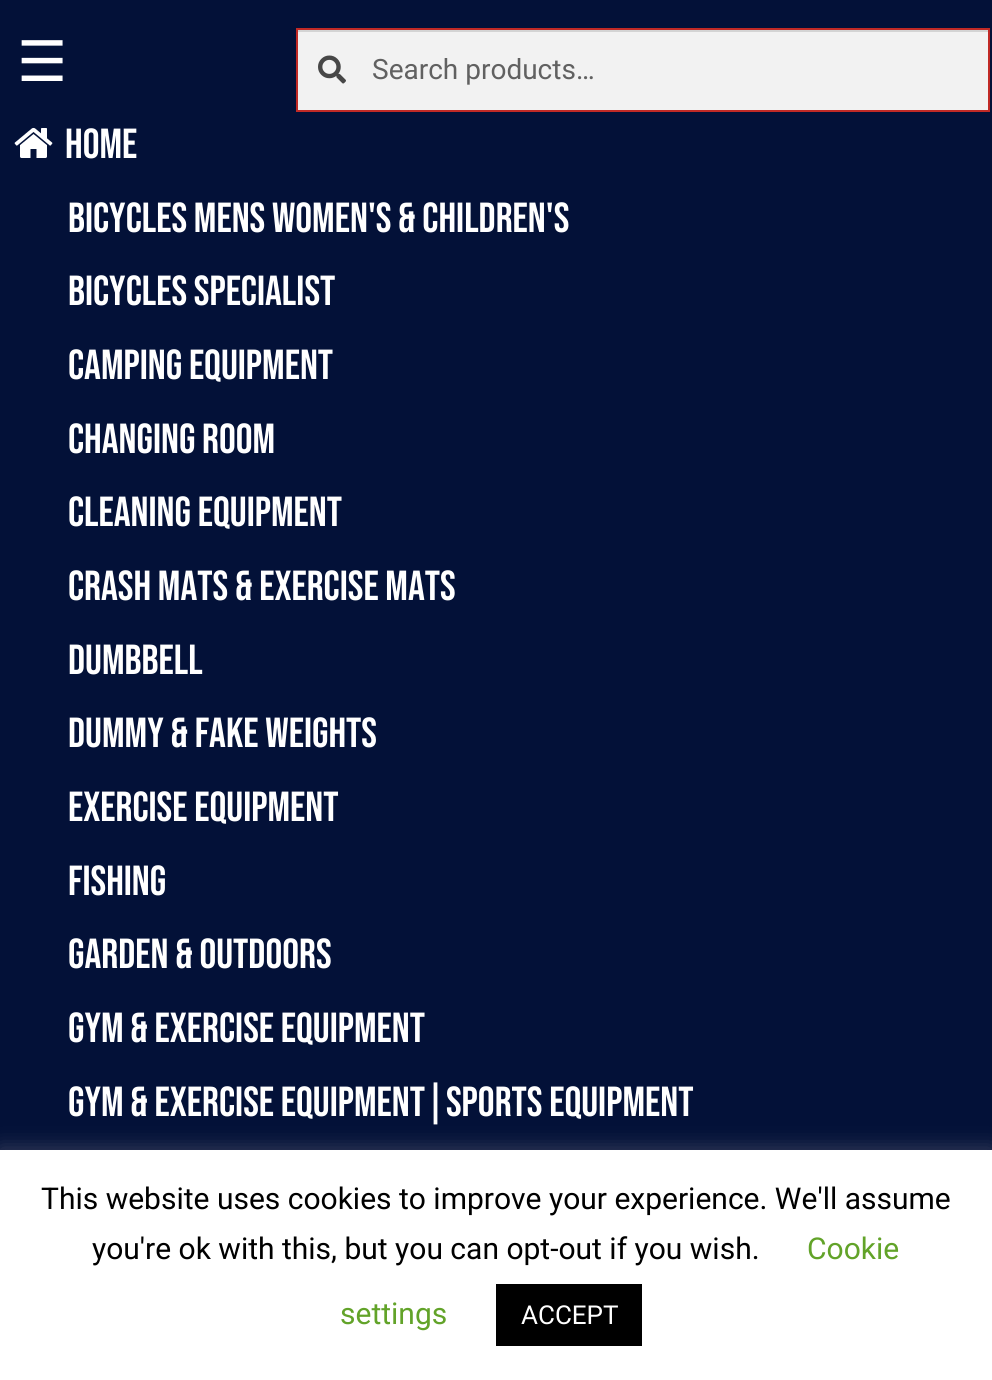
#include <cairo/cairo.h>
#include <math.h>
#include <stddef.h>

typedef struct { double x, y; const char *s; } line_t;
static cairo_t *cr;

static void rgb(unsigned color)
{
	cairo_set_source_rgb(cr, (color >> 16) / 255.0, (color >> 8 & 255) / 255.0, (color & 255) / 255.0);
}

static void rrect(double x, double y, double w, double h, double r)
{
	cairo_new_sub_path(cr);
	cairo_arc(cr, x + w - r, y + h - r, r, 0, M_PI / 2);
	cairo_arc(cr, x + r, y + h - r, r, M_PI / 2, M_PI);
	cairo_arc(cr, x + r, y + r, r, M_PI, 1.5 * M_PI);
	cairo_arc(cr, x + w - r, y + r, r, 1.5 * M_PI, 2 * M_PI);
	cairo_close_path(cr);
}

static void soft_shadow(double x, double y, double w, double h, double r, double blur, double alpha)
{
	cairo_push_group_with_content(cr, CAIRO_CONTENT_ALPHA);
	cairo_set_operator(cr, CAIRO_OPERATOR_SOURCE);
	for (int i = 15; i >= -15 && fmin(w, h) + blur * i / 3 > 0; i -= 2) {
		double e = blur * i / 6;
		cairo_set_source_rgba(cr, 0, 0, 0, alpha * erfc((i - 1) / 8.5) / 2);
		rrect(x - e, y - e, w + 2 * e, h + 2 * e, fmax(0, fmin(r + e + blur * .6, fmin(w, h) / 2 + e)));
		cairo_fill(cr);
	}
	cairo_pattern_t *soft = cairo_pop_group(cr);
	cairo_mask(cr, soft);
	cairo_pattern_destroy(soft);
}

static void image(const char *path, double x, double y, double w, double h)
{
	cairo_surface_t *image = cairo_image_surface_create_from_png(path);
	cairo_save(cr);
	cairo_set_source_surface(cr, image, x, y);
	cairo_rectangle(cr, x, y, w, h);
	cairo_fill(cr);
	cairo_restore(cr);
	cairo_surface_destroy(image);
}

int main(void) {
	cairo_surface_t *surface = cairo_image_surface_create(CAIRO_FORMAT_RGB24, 992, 1380);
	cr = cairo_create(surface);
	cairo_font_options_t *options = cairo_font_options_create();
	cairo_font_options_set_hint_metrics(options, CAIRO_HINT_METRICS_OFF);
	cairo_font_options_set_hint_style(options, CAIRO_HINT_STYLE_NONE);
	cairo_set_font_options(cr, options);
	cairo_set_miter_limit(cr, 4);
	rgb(0x031138);
	cairo_paint(cr);
	rgb(0xf2f2f2);
	cairo_rectangle(cr, 298, 32, 690, 78);
	cairo_fill(cr);
	rgb(0xd4d4d4);
	cairo_rectangle(cr, 298, 30, 690, 2);
	cairo_fill(cr);
	cairo_rectangle(cr, 297, 29, 692, 82);
	rgb(0xc12a26);
	cairo_stroke(cr);
	image("img/1.png", 318, 55, 28, 29);
	image("img/2.png", 14, 127, 39, 31);
	rgb(0xacabab);
	soft_shadow(0, 1148, 992, 230, 0, 10, 0.3);
	rgb(0xffffff);
	cairo_rectangle(cr, 0, 1150, 992, 230);
	cairo_fill(cr);
	rgb(0x000000);
	cairo_rectangle(cr, 496, 1284, 146, 62);
	cairo_fill(cr);
	cairo_select_font_face(cr, "DejaVu Sans", CAIRO_FONT_SLANT_NORMAL, CAIRO_FONT_WEIGHT_NORMAL);
	cairo_set_font_size(cr, 56);
	rgb(0xffffff);
	cairo_move_to(cr, 17, 81);
	cairo_show_text(cr, "☰");
	cairo_select_font_face(cr, "Roboto", CAIRO_FONT_SLANT_NORMAL, CAIRO_FONT_WEIGHT_NORMAL);
	cairo_set_font_size(cr, 28);
	rgb(0x616161);
	cairo_move_to(cr, 372, 79);
	cairo_show_text(cr, "Search products…");
	cairo_select_font_face(cr, "Bebas Neue", CAIRO_FONT_SLANT_NORMAL, CAIRO_FONT_WEIGHT_NORMAL);
	cairo_set_font_size(cr, 42);
	rgb(0xffffff);
	{
		static const line_t items[] = {
			{65, 158, "Home"},
			{68, 232, "Bicycles Mens Women's & Children's"},
			{68, 305, "Bicycles Specialist"},
			{68, 379, "Camping Equipment"},
			{68, 453, "Changing Room"},
			{68, 526, "Cleaning Equipment"},
			{68, 600, "Crash Mats & Exercise Mats"},
			{68, 674, "Dumbbell"},
			{68, 747, "Dummy & Fake Weights"},
			{68, 821, "Exercise Equipment"},
			{68, 895, "Fishing"},
			{68, 968, "Garden & Outdoors"},
			{68, 1042, "Gym & Exercise Equipment"},
			{68, 1116, "Gym & Exercise Equipment|Sports Equipment"},
		};
		for (size_t i = 0; i < sizeof items / sizeof *items; i++) {
			cairo_move_to(cr, items[i].x, items[i].y);
			cairo_show_text(cr, items[i].s);
		}
	}
	cairo_select_font_face(cr, "Roboto", CAIRO_FONT_SLANT_NORMAL, CAIRO_FONT_WEIGHT_NORMAL);
	cairo_set_font_size(cr, 30);
	rgb(0x000000);
	cairo_move_to(cr, 41, 1209);
	cairo_show_text(cr, "This website uses cookies to improve your experience. We'll assume");
	cairo_move_to(cr, 92, 1259);
	cairo_show_text(cr, "you're ok with this, but you can opt-out if you wish.");
	rgb(0x62a329);
	cairo_move_to(cr, 807, 1259);
	cairo_show_text(cr, "Cookie");
	cairo_move_to(cr, 340, 1324);
	cairo_show_text(cr, "settings");
	cairo_set_font_size(cr, 26);
	rgb(0xffffff);
	cairo_move_to(cr, 521, 1324);
	cairo_show_text(cr, "ACCEPT");
	cairo_surface_write_to_png(surface, "page.png");
	cairo_font_options_destroy(options);
	cairo_destroy(cr);
	cairo_surface_destroy(surface);
	return 0;
}
